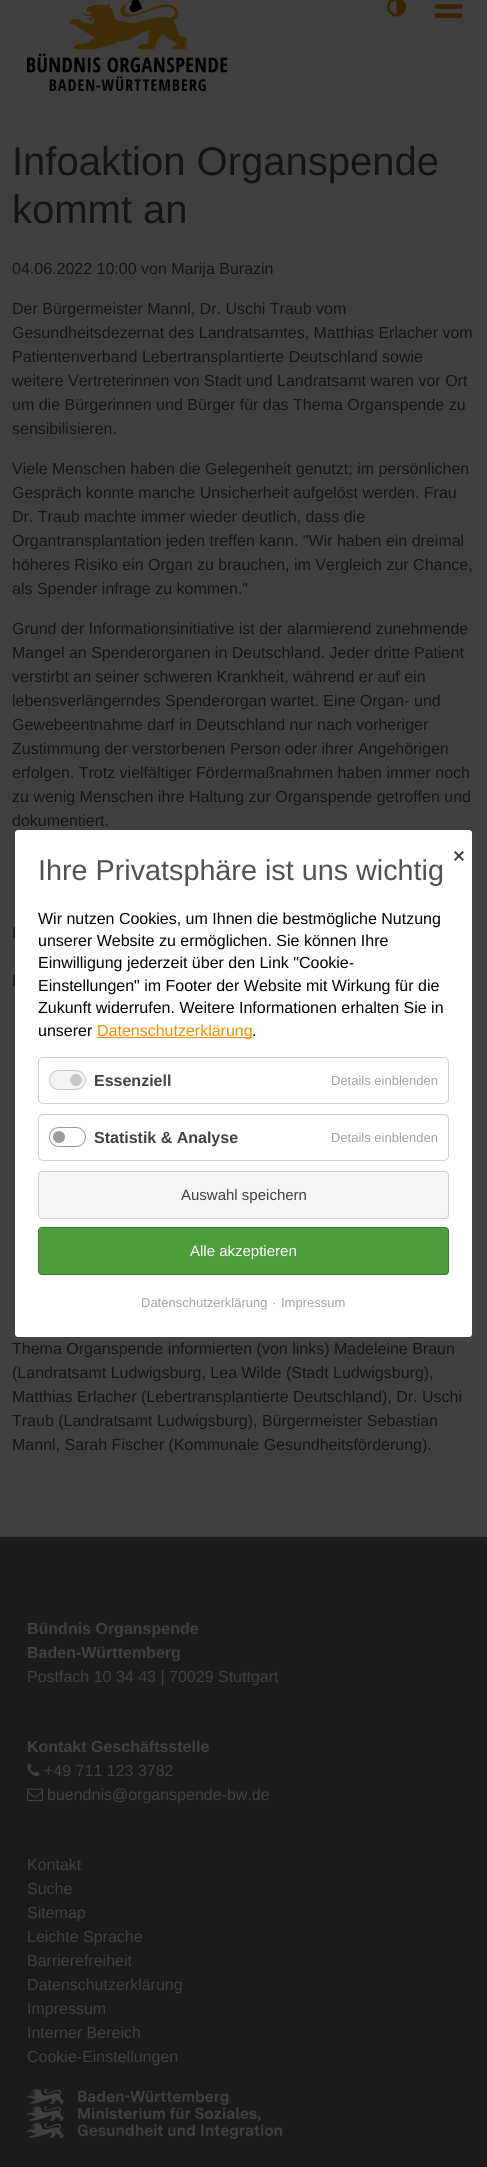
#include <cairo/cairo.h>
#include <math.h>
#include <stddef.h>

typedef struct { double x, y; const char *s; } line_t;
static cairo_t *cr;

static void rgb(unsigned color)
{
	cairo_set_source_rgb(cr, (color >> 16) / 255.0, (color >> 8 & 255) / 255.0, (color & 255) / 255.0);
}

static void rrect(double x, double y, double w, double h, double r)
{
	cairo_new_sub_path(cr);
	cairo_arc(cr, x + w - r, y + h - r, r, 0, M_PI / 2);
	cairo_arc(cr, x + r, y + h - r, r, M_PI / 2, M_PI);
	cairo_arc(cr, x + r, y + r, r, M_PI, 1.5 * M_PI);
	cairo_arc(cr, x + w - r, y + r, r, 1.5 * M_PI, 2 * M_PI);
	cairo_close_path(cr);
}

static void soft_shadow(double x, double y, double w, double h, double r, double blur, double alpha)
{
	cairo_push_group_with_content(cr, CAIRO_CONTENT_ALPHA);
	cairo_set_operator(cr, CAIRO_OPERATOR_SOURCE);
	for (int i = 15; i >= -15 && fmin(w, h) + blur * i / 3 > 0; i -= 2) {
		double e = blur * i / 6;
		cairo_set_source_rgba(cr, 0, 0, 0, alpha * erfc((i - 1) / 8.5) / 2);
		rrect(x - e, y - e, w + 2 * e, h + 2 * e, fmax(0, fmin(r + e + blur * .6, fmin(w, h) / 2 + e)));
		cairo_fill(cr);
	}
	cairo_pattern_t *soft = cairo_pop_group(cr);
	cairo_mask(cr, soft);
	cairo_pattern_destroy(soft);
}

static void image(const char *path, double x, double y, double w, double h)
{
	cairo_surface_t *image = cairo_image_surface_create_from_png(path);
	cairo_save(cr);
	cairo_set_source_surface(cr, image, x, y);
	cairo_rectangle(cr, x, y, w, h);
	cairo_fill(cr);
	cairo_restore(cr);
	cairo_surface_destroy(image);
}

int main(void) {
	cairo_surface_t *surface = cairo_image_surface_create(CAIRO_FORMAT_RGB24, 487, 2167);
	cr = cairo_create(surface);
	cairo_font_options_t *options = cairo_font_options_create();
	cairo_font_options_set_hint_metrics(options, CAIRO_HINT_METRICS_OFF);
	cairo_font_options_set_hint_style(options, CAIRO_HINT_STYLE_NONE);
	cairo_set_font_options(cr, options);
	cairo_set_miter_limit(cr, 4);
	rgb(0x404040);
	cairo_paint(cr);
	image("img/1.png", 27, 0, 200, 91);
	image("img/2.png", 387, 0, 19, 17);
	image("img/3.png", 435, 4, 28, 14);
	rgb(0x1b1b1b);
	cairo_rectangle(cr, 0, 1537, 487, 630);
	cairo_fill(cr);
	image("img/4.png", 27, 1763, 13, 13);
	image("img/5.png", 27, 1788, 16, 14);
	image("img/6.png", 27, 2089, 255, 50);
	rgb(0x636363);
	soft_shadow(15, 832, 457, 507, 3, 4, 0.2);
	cairo_select_font_face(cr, "Liberation Sans", CAIRO_FONT_SLANT_NORMAL, CAIRO_FONT_WEIGHT_NORMAL);
	cairo_set_font_size(cr, 40);
	rgb(0x141414);
	cairo_move_to(cr, 12, 175);
	cairo_show_text(cr, "Infoaktion Organspende");
	cairo_move_to(cr, 12, 223);
	cairo_show_text(cr, "kommt an");
	cairo_set_font_size(cr, 16);
	{
		static const line_t items[] = {
			{12, 274, "04.06.2022 10:00 von Marija Burazin"},
			{12, 314, "Der Bürgermeister Mannl, Dr. Uschi Traub vom"},
			{12, 338, "Gesundheitsdezernat des Landratsamtes, Matthias Erlacher vom"},
			{12, 362, "Patientenverband Lebertransplantierte Deutschland sowie"},
			{12, 386, "weitere Vertreterinnen von Stadt und Landratsamt waren vor Ort"},
			{12, 410, "um die Bürgerinnen und Bürger für das Thema Organspende zu"},
			{12, 434, "sensibilisieren."},
			{12, 474, "Viele Menschen haben die Gelegenheit genutzt; im persönlichen"},
			{12, 498, "Gespräch konnte manche Unsicherheit aufgelöst werden. Frau"},
			{12, 522, "Dr. Traub machte immer wieder deutlich, dass die"},
			{12, 546, "Organtransplantation jeden treffen kann. \"Wir haben ein dreimal"},
			{12, 570, "höheres Risiko ein Organ zu brauchen, im Vergleich zur Chance,"},
			{12, 594, "als Spender infrage zu kommen.\""},
			{12, 634, "Grund der Informationsinitiative ist der alarmierend zunehmende"},
			{12, 658, "Mangel an Spenderorganen in Deutschland. Jeder dritte Patient"},
			{12, 682, "verstirbt an seiner schweren Krankheit, während er auf ein"},
			{12, 706, "lebensverlängerndes Spenderorgan wartet. Eine Organ- und"},
			{12, 730, "Gewebeentnahme darf in Deutschland nur nach vorheriger"},
			{12, 754, "Zustimmung der verstorbenen Person oder ihrer Angehörigen"},
			{12, 778, "erfolgen. Trotz vielfältiger Fördermaßnahmen haben immer noch"},
			{12, 802, "zu wenig Menschen ihre Haltung zur Organspende getroffen und"},
			{12, 826, "dokumentiert."},
			{12, 938, "I"},
			{12, 986, "L"},
			{12, 1354, "Thema Organspende informierten (von links) Madeleine Braun"},
			{12, 1378, "(Landratsamt Ludwigsburg, Lea Wilde (Stadt Ludwigsburg),"},
			{12, 1402, "Matthias Erlacher (Lebertransplantierte Deutschland), Dr. Uschi"},
			{12, 1426, "Traub (Landratsamt Ludwigsburg), Bürgermeister Sebastian"},
			{12, 1450, "Mannl, Sarah Fischer (Kommunale Gesundheitsförderung)."},
		};
		for (size_t i = 0; i < sizeof items / sizeof *items; i++) {
			cairo_move_to(cr, items[i].x, items[i].y);
			cairo_show_text(cr, items[i].s);
		}
	}
	cairo_select_font_face(cr, "Liberation Sans", CAIRO_FONT_SLANT_NORMAL, CAIRO_FONT_WEIGHT_BOLD);
	rgb(0x404040);
	cairo_move_to(cr, 27, 1634);
	cairo_show_text(cr, "Bündnis Organspende");
	cairo_move_to(cr, 27, 1658);
	cairo_show_text(cr, "Baden-Württemberg");
	cairo_select_font_face(cr, "Liberation Sans", CAIRO_FONT_SLANT_NORMAL, CAIRO_FONT_WEIGHT_NORMAL);
	cairo_move_to(cr, 27, 1682);
	cairo_show_text(cr, "Postfach 10 34 43 | 70029 Stuttgart");
	cairo_select_font_face(cr, "Liberation Sans", CAIRO_FONT_SLANT_NORMAL, CAIRO_FONT_WEIGHT_BOLD);
	cairo_move_to(cr, 27, 1752);
	cairo_show_text(cr, "Kontakt Geschäftsstelle");
	cairo_select_font_face(cr, "Liberation Sans", CAIRO_FONT_SLANT_NORMAL, CAIRO_FONT_WEIGHT_NORMAL);
	{
		static const line_t items[] = {
			{44, 1776, "+49 711 123 3782"},
			{47, 1800, "buendnis@organspende-bw.de"},
			{27, 1870, "Kontakt"},
			{27, 1894, "Suche"},
			{27, 1918, "Sitemap"},
			{27, 1942, "Leichte Sprache"},
			{27, 1966, "Barrierefreiheit"},
			{27, 1990, "Datenschutzerklärung"},
			{27, 2014, "Impressum"},
			{27, 2038, "Interner Bereich"},
			{27, 2062, "Cookie-Einstellungen"},
		};
		for (size_t i = 0; i < sizeof items / sizeof *items; i++) {
			cairo_move_to(cr, items[i].x, items[i].y);
			cairo_show_text(cr, items[i].s);
		}
	}
	rgb(0xffffff);
	rrect(15, 830, 457, 507, 3);
	cairo_fill(cr);
	cairo_select_font_face(cr, "DejaVu Sans", CAIRO_FONT_SLANT_NORMAL, CAIRO_FONT_WEIGHT_BOLD);
	rgb(0x404040);
	cairo_move_to(cr, 452, 862);
	cairo_show_text(cr, "✕");
	cairo_select_font_face(cr, "Liberation Sans", CAIRO_FONT_SLANT_NORMAL, CAIRO_FONT_WEIGHT_NORMAL);
	cairo_set_font_size(cr, 28.75);
	rgb(0x515151);
	cairo_move_to(cr, 38, 880);
	cairo_show_text(cr, "Ihre Privatsphäre ist uns wichtig");
	cairo_set_font_size(cr, 16);
	rgb(0x000000);
	{
		static const line_t items[] = {
			{38, 924, "Wir nutzen Cookies, um Ihnen die bestmögliche Nutzung"},
			{38, 946, "unserer Website zu ermöglichen. Sie können Ihre"},
			{38, 968, "Einwilligung jederzeit über den Link \"Cookie-"},
			{38, 991, "Einstellungen\" im Footer der Website mit Wirkung für die"},
			{38, 1013, "Zukunft widerrufen. Weitere Informationen erhalten Sie in"},
			{38, 1036, "unserer"},
		};
		for (size_t i = 0; i < sizeof items / sizeof *items; i++) {
			cairo_move_to(cr, items[i].x, items[i].y);
			cairo_show_text(cr, items[i].s);
		}
	}
	rgb(0xf28c00);
	cairo_rectangle(cr, 97, 1037, 155, 1);
	cairo_fill(cr);
	cairo_move_to(cr, 97, 1036);
	cairo_show_text(cr, "Datenschutzerklärung");
	rgb(0x000000);
	cairo_move_to(cr, 252, 1036);
	cairo_show_text(cr, ".");
	rrect(38.5, 1057.5, 410, 46, 4.5);
	rgb(0xd0d0d0);
	cairo_set_line_width(cr, 1);
	cairo_stroke(cr);
	rgb(0xf4f4f4);
	rrect(49.5, 1070.5, 36, 19, 9.5);
	cairo_fill_preserve(cr);
	rgb(0xc8c7c5);
	cairo_stroke(cr);
	cairo_arc(cr, 76, 1080, 6, 0, 2 * M_PI);
	cairo_fill(cr);
	cairo_select_font_face(cr, "Liberation Sans", CAIRO_FONT_SLANT_NORMAL, CAIRO_FONT_WEIGHT_BOLD);
	rgb(0x404040);
	cairo_move_to(cr, 94, 1086);
	cairo_show_text(cr, "Essenziell");
	cairo_select_font_face(cr, "Liberation Sans", CAIRO_FONT_SLANT_NORMAL, CAIRO_FONT_WEIGHT_NORMAL);
	cairo_set_font_size(cr, 13);
	rgb(0xa2a2a2);
	cairo_move_to(cr, 331, 1085);
	cairo_show_text(cr, "Details einblenden");
	rrect(38.5, 1114.5, 410, 46, 4.5);
	rgb(0xd0d0d0);
	cairo_stroke(cr);
	rrect(49.5, 1127.5, 36, 19, 9.5);
	rgb(0x9c9b99);
	cairo_stroke(cr);
	cairo_arc(cr, 59, 1137, 6, 0, 2 * M_PI);
	cairo_fill(cr);
	cairo_select_font_face(cr, "Liberation Sans", CAIRO_FONT_SLANT_NORMAL, CAIRO_FONT_WEIGHT_BOLD);
	cairo_set_font_size(cr, 16);
	rgb(0x404040);
	cairo_move_to(cr, 94, 1143);
	cairo_show_text(cr, "Statistik & Analyse");
	cairo_select_font_face(cr, "Liberation Sans", CAIRO_FONT_SLANT_NORMAL, CAIRO_FONT_WEIGHT_NORMAL);
	cairo_set_font_size(cr, 13);
	rgb(0xa2a2a2);
	cairo_move_to(cr, 331, 1142);
	cairo_show_text(cr, "Details einblenden");
	rgb(0xf5f5f5);
	rrect(38.5, 1171.5, 410, 47, 3.5);
	cairo_fill_preserve(cr);
	rgb(0xcfcfcf);
	cairo_stroke(cr);
	cairo_set_font_size(cr, 15);
	rgb(0x404040);
	cairo_move_to(cr, 181, 1200);
	cairo_show_text(cr, "Auswahl speichern");
	rgb(0x4e9e3e);
	rrect(38.5, 1227.5, 410, 47, 3.5);
	cairo_fill_preserve(cr);
	rgb(0x3e7830);
	cairo_stroke(cr);
	rgb(0xffffff);
	cairo_move_to(cr, 190, 1256);
	cairo_show_text(cr, "Alle akzeptieren");
	cairo_set_font_size(cr, 13);
	rgb(0xa2a2a2);
	{
		static const line_t items[] = {
			{141, 1307, "Datenschutzerklärung"},
			{272, 1307, "·"},
			{281, 1307, "Impressum"},
		};
		for (size_t i = 0; i < sizeof items / sizeof *items; i++) {
			cairo_move_to(cr, items[i].x, items[i].y);
			cairo_show_text(cr, items[i].s);
		}
	}
	cairo_surface_write_to_png(surface, "page.png");
	cairo_font_options_destroy(options);
	cairo_destroy(cr);
	cairo_surface_destroy(surface);
	return 0;
}
